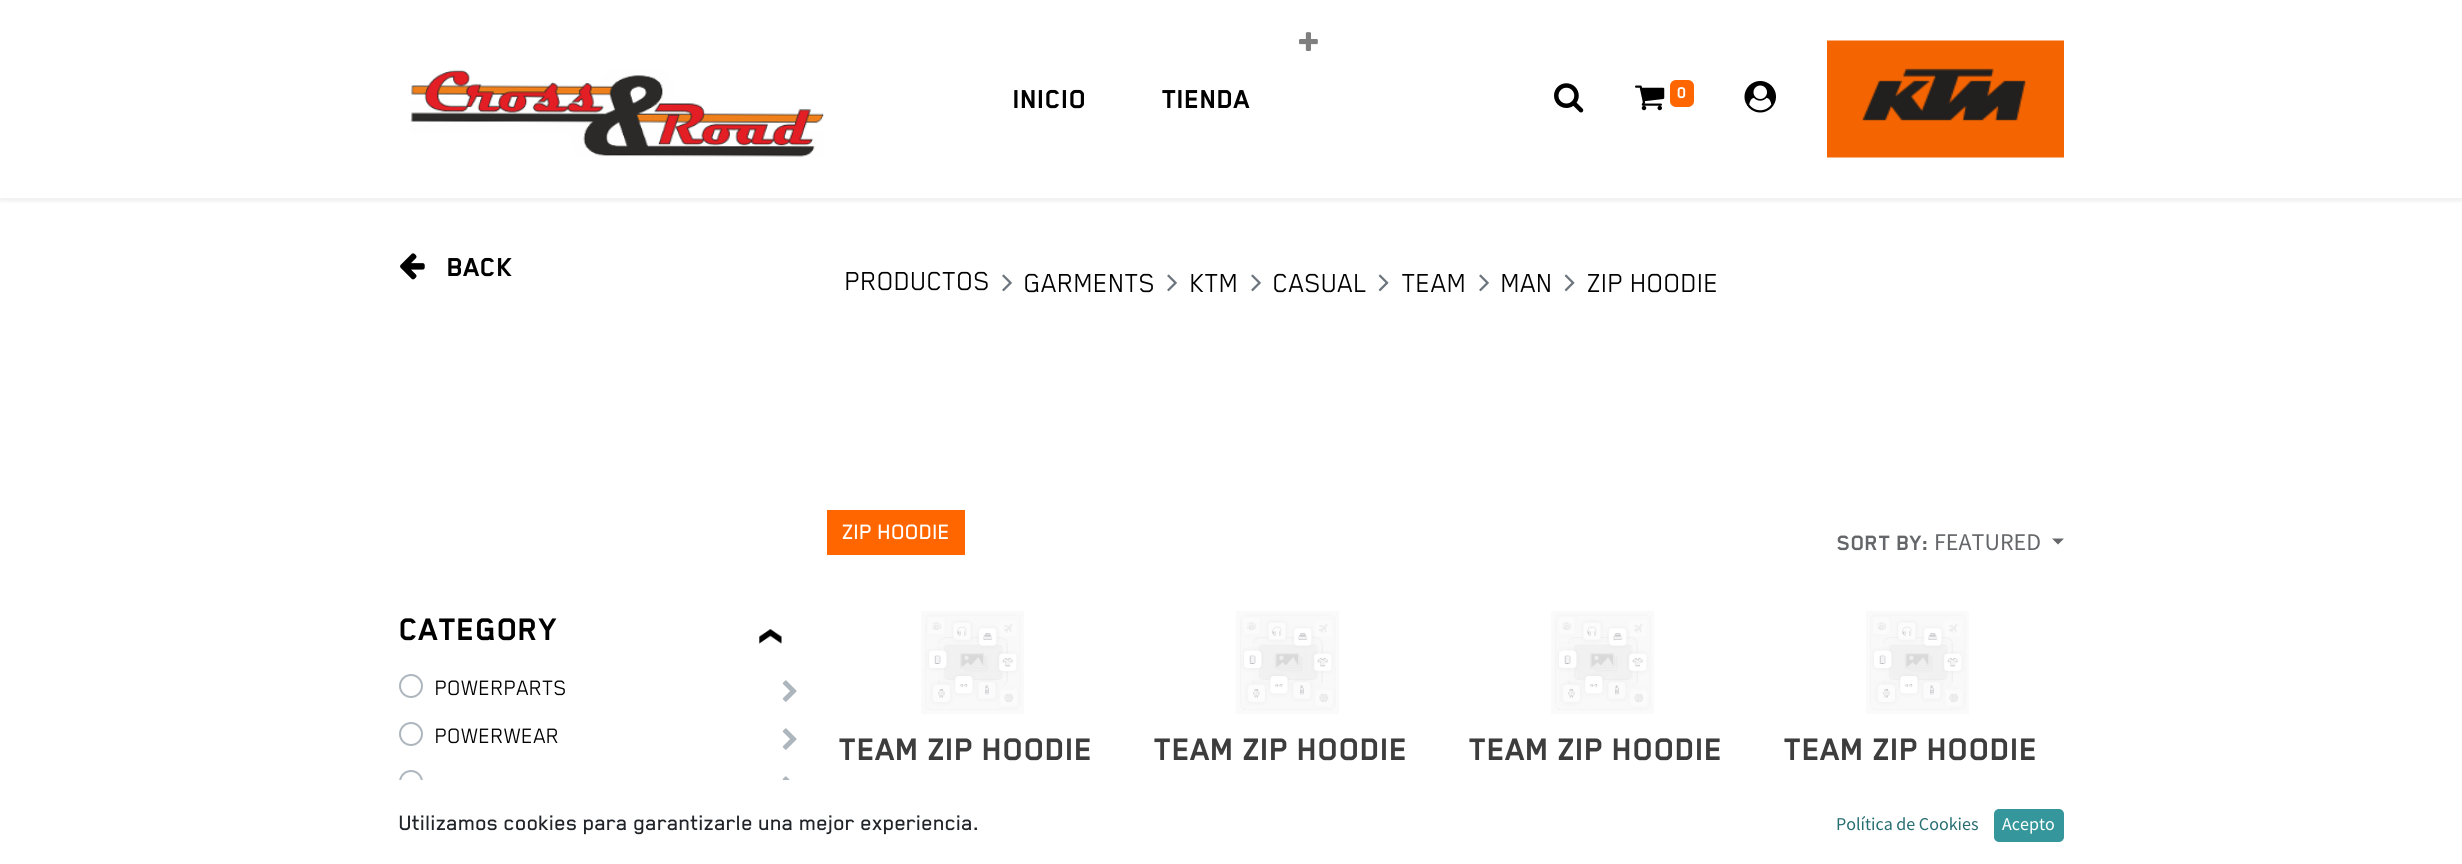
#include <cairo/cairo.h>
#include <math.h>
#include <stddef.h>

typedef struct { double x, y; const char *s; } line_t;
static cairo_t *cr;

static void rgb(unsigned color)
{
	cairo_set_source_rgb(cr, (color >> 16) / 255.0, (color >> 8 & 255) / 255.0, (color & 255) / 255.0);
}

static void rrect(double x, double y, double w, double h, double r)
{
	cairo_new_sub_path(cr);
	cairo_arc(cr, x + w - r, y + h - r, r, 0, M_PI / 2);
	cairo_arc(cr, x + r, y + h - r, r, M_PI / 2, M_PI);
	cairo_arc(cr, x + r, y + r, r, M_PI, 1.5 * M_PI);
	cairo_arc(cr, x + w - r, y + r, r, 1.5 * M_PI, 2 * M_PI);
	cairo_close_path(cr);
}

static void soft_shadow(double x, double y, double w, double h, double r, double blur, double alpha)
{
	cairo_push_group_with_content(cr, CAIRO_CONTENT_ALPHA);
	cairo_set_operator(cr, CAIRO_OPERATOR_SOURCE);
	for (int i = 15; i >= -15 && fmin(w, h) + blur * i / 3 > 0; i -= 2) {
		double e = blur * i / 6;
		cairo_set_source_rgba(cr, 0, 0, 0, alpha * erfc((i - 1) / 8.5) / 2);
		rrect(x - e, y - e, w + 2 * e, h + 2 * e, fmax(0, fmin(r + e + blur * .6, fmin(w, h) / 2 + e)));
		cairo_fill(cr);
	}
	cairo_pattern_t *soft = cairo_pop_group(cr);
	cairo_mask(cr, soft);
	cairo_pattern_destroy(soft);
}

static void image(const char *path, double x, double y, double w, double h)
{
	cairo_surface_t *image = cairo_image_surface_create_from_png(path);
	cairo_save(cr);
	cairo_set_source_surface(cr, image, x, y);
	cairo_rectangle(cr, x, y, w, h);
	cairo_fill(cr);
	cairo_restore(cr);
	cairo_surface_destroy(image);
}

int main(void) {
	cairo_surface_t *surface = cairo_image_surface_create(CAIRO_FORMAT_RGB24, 2462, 864);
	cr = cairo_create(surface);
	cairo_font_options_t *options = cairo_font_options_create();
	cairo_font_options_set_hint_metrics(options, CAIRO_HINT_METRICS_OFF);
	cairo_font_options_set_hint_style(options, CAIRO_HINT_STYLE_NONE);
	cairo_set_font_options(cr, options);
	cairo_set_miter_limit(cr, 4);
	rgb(0xffffff);
	cairo_paint(cr);
	cairo_save(cr);
	cairo_rectangle(cr, 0, 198, 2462, 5);
	cairo_clip(cr);
	rgb(0x000000);
	soft_shadow(0, 3, 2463, 198, 0, 3, 0.07);
	cairo_restore(cr);
	image("img/1.png", 410, 69, 414, 88);
	image("img/2.png", 1299, 32, 19, 19);
	image("img/3.png", 1554, 83, 30, 30);
	image("img/4.png", 1635, 85, 30, 26);
	rgb(0xff6600);
	rrect(1670, 80, 24, 27, 6);
	cairo_fill(cr);
	image("img/5.png", 1744, 81, 32, 32);
	image("img/6.png", 1827, 40, 237, 118);
	image("img/7.png", 400, 253, 25, 27);
	image("img/8.png", 1002, 274, 10, 18);
	image("img/8.png", 1167, 274, 10, 18);
	image("img/8.png", 1251, 274, 10, 18);
	image("img/9.png", 1378, 274, 11, 18);
	image("img/8.png", 1479, 274, 10, 18);
	image("img/9.png", 1564, 274, 11, 18);
	cairo_rectangle(cr, 827, 510, 138, 45);
	cairo_fill(cr);
	rgb(0x646669);
	cairo_new_path(cr);
	cairo_move_to(cr, 2052, 538.5);
	cairo_line_to(cr, 2064, 538.5);
	cairo_line_to(cr, 2058, 544.5);
	cairo_close_path(cr);
	cairo_fill(cr);
	image("img/10.png", 759, 628, 23, 16);
	cairo_arc(cr, 411, 686, 11, 0, 2 * M_PI);
	rgb(0xadb5bd);
	cairo_stroke(cr);
	image("img/11.png", 782, 680, 15, 22);
	cairo_arc(cr, 411, 734, 11, 0, 2 * M_PI);
	cairo_stroke(cr);
	image("img/11.png", 782, 728, 15, 22);
	cairo_arc(cr, 411, 782, 11, 0, 2 * M_PI);
	cairo_stroke(cr);
	image("img/12.png", 782, 776, 8, 4);
	image("img/13.png", 921, 611, 103, 103);
	image("img/13.png", 1236, 611, 103, 103);
	image("img/13.png", 1551, 611, 103, 103);
	image("img/13.png", 1866, 611, 103, 103);
	rgb(0xffffff);
	cairo_rectangle(cr, 399, 780, 24, 14);
	cairo_fill(cr);
	rgb(0x35979c);
	rrect(1995, 810, 68, 31, 4);
	cairo_fill_preserve(cr);
	cairo_stroke(cr);
	cairo_select_font_face(cr, "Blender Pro", CAIRO_FONT_SLANT_NORMAL, CAIRO_FONT_WEIGHT_BOLD);
	cairo_set_font_size(cr, 30);
	rgb(0x000000);
	cairo_move_to(cr, 1013, 108);
	cairo_show_text(cr, "INICIO");
	cairo_move_to(cr, 1162, 108);
	cairo_show_text(cr, "TIENDA");
	cairo_set_font_size(cr, 18);
	rgb(0xffffff);
	cairo_move_to(cr, 1677, 98);
	cairo_show_text(cr, "0");
	cairo_set_font_size(cr, 30);
	rgb(0x000000);
	cairo_move_to(cr, 447, 276);
	cairo_show_text(cr, "BACK");
	cairo_select_font_face(cr, "Blender Pro", CAIRO_FONT_SLANT_NORMAL, CAIRO_FONT_WEIGHT_NORMAL);
	{
		static const line_t items[] = {
			{845, 290, "PRODUCTOS"},
			{1024, 292, "GARMENTS"},
			{1190, 292, "KTM"},
			{1273, 292, "CASUAL"},
			{1402, 292, "TEAM"},
			{1501, 292, "MAN"},
			{1587, 292, "ZIP HOODIE"},
		};
		for (size_t i = 0; i < sizeof items / sizeof *items; i++) {
			cairo_move_to(cr, items[i].x, items[i].y);
			cairo_show_text(cr, items[i].s);
		}
	}
	cairo_select_font_face(cr, "Blender Pro Medium", CAIRO_FONT_SLANT_NORMAL, CAIRO_FONT_WEIGHT_NORMAL);
	cairo_set_font_size(cr, 24);
	rgb(0xffffff);
	cairo_move_to(cr, 842, 539);
	cairo_show_text(cr, "ZIP HOODIE");
	cairo_select_font_face(cr, "Blender Pro", CAIRO_FONT_SLANT_NORMAL, CAIRO_FONT_WEIGHT_BOLD);
	rgb(0x646669);
	cairo_move_to(cr, 1837, 550);
	cairo_show_text(cr, "SORT BY:");
	cairo_select_font_face(cr, "Source Sans Pro", CAIRO_FONT_SLANT_NORMAL, CAIRO_FONT_WEIGHT_NORMAL);
	cairo_move_to(cr, 1934, 550);
	cairo_show_text(cr, "FEATURED");
	cairo_select_font_face(cr, "Blender Pro", CAIRO_FONT_SLANT_NORMAL, CAIRO_FONT_WEIGHT_BOLD);
	cairo_set_font_size(cr, 36);
	rgb(0x000000);
	cairo_move_to(cr, 399, 640);
	cairo_show_text(cr, "CATEGORY");
	cairo_select_font_face(cr, "Blender Pro", CAIRO_FONT_SLANT_NORMAL, CAIRO_FONT_WEIGHT_NORMAL);
	cairo_set_font_size(cr, 24);
	cairo_move_to(cr, 435, 695);
	cairo_show_text(cr, "POWERPARTS");
	cairo_move_to(cr, 435, 743);
	cairo_show_text(cr, "POWERWEAR");
	cairo_select_font_face(cr, "Blender Pro", CAIRO_FONT_SLANT_NORMAL, CAIRO_FONT_WEIGHT_BOLD);
	cairo_set_font_size(cr, 36);
	rgb(0x3d3d3d);
	{
		static const line_t items[] = {
			{839, 760, "TEAM ZIP HOODIE"},
			{1154, 760, "TEAM ZIP HOODIE"},
			{1469, 760, "TEAM ZIP HOODIE"},
			{1784, 760, "TEAM ZIP HOODIE"},
		};
		for (size_t i = 0; i < sizeof items / sizeof *items; i++) {
			cairo_move_to(cr, items[i].x, items[i].y);
			cairo_show_text(cr, items[i].s);
		}
	}
	cairo_select_font_face(cr, "Blender Pro Medium", CAIRO_FONT_SLANT_NORMAL, CAIRO_FONT_WEIGHT_NORMAL);
	cairo_set_font_size(cr, 24);
	rgb(0x212529);
	cairo_move_to(cr, 399, 830);
	cairo_show_text(cr, "Utilizamos cookies para garantizarle una mejor experiencia.");
	cairo_select_font_face(cr, "Source Sans Pro", CAIRO_FONT_SLANT_NORMAL, CAIRO_FONT_WEIGHT_NORMAL);
	cairo_set_font_size(cr, 18);
	rgb(0x276e72);
	cairo_move_to(cr, 1836, 830);
	cairo_show_text(cr, "Política de Cookies");
	rgb(0xffffff);
	cairo_move_to(cr, 2002, 830);
	cairo_show_text(cr, "Acepto");
	cairo_surface_write_to_png(surface, "page.png");
	cairo_font_options_destroy(options);
	cairo_destroy(cr);
	cairo_surface_destroy(surface);
	return 0;
}
